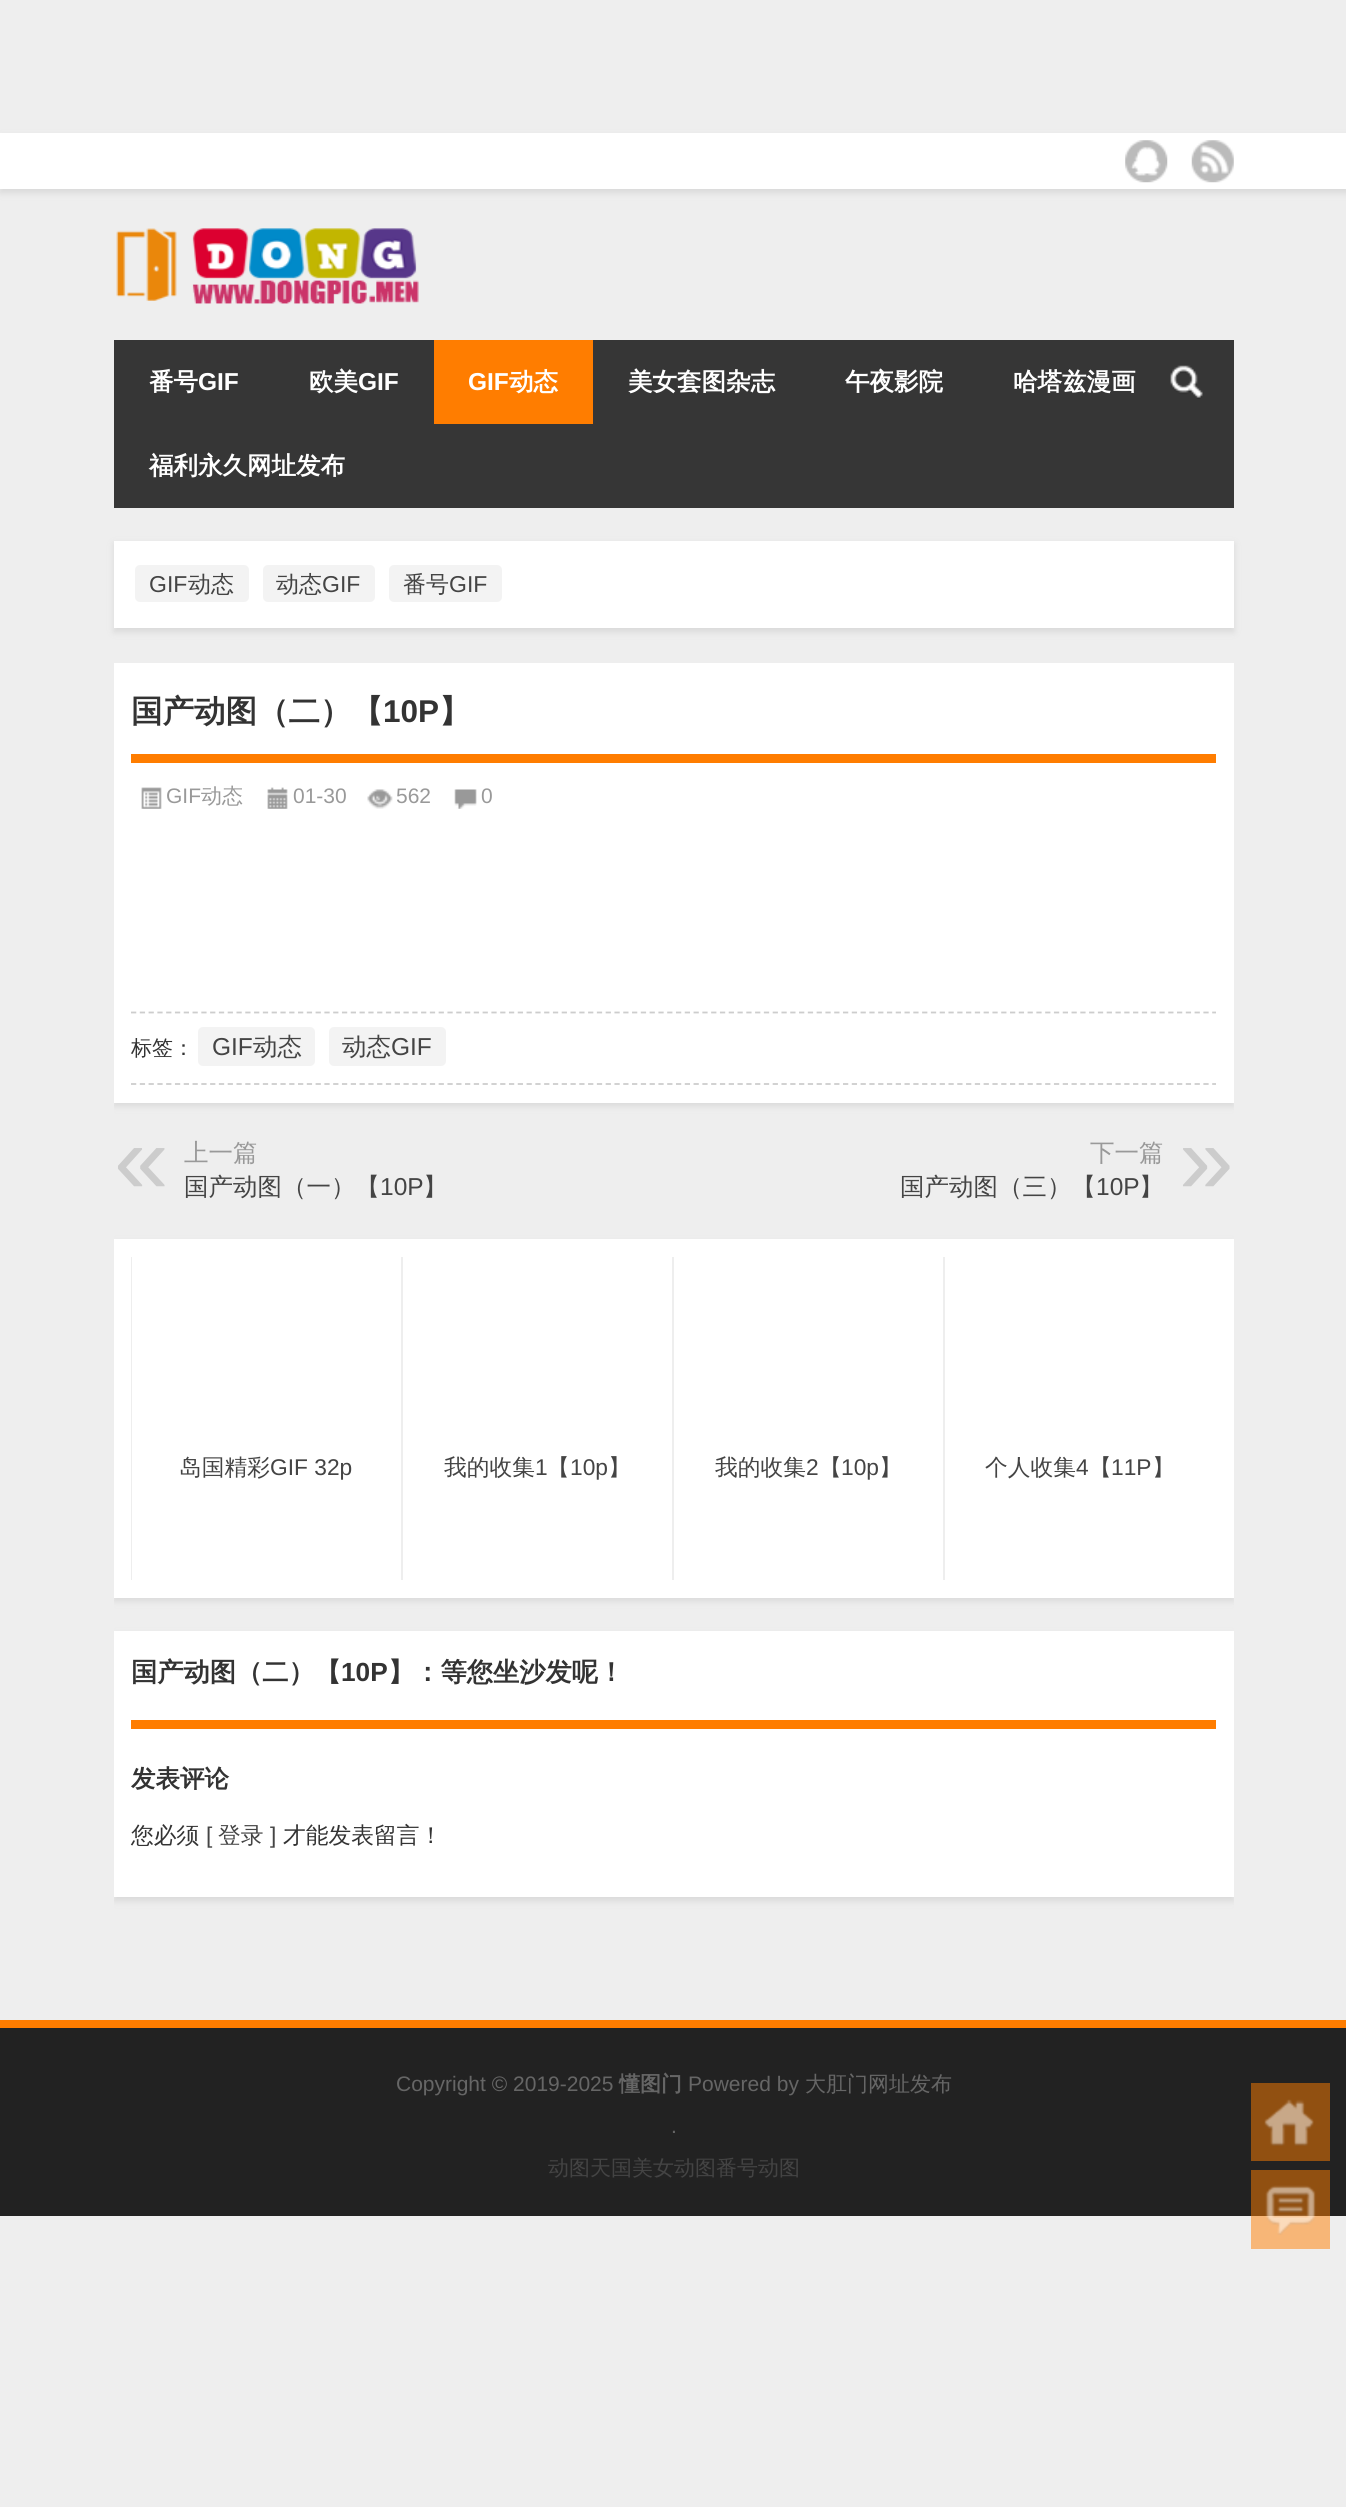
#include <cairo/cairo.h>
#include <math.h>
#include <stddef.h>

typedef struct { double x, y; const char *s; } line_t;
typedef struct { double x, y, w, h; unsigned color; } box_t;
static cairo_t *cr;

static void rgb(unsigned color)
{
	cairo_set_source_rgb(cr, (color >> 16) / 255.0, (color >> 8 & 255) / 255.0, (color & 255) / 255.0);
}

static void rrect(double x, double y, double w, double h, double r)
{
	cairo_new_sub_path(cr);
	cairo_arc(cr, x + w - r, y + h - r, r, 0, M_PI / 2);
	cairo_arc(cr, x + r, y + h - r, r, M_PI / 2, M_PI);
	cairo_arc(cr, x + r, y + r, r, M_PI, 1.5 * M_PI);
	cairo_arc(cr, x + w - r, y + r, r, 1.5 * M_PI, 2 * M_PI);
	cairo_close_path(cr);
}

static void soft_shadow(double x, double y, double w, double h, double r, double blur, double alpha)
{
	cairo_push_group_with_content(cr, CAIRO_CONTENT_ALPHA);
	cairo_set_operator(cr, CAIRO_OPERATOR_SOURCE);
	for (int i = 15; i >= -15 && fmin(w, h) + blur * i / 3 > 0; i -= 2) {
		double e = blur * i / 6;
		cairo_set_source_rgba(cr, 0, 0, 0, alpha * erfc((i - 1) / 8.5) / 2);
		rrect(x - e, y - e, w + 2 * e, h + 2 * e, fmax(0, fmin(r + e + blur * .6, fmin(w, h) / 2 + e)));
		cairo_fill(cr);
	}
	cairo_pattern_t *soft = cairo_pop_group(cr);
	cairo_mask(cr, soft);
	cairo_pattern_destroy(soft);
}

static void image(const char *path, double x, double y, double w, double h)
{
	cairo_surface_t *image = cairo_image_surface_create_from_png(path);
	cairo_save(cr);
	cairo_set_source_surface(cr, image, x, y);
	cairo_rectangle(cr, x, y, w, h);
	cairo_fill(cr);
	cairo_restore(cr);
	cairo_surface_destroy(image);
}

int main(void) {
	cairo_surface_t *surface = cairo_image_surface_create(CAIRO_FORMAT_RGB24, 1346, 2507);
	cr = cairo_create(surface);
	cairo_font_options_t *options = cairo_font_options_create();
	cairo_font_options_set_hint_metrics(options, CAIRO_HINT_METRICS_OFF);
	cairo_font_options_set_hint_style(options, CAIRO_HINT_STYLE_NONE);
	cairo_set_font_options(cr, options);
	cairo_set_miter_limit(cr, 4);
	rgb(0xeeeeee);
	cairo_paint(cr);
	rgb(0xf7b677);
	cairo_rectangle(cr, 1251, 2216, 79, 33);
	cairo_fill(cr);
	rgb(0xd9d9d9);
	soft_shadow(0, 137, 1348, 56, 0, 3.5, 1);
	rgb(0xffffff);
	cairo_rectangle(cr, 0, 133, 1346, 56);
	cairo_fill(cr);
	image("img/1.png", 1125, 140, 43, 43);
	image("img/2.png", 1191, 140, 43, 43);
	image("img/3.png", 116, 228, 303, 76);
	rgb(0x363636);
	cairo_rectangle(cr, 114, 340, 1120, 168);
	cairo_fill(cr);
	rgb(0xff7d00);
	cairo_rectangle(cr, 434, 340, 159, 84);
	cairo_fill(cr);
	image("img/4.png", 1170, 365, 33, 34);
	rgb(0xd9d9d9);
	soft_shadow(114, 544, 1120, 88, 0, 3.5, 1);
	rgb(0xffffff);
	cairo_rectangle(cr, 114, 541, 1120, 87);
	cairo_fill(cr);
	rgb(0xf3f3f3);
	rrect(135, 565, 114, 37, 5);
	cairo_fill(cr);
	rrect(263, 565, 112, 37, 5);
	cairo_fill(cr);
	rrect(389, 565, 113, 37, 5);
	cairo_fill(cr);
	cairo_save(cr);
	cairo_rectangle(cr, 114, 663, 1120, 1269);
	cairo_clip(cr);
	rgb(0xd9d9d9);
	soft_shadow(114, 667, 1120, 439, 0, 3.5, 1);
	cairo_restore(cr);
	rgb(0xffffff);
	cairo_rectangle(cr, 114, 663, 1120, 440);
	cairo_fill(cr);
	rgb(0xff7d00);
	cairo_rectangle(cr, 131, 754, 1085, 9);
	cairo_fill(cr);
	image("img/5.png", 141, 787, 21, 22);
	image("img/6.png", 267, 787, 21, 22);
	image("img/7.png", 367, 789, 26, 20);
	image("img/8.png", 454, 789, 23, 20);
	cairo_new_path(cr);
	cairo_move_to(cr, 131, 1012.5);
	cairo_line_to(cr, 1216, 1012.5);
	rgb(0xcdcdcd);
	cairo_set_line_width(cr, 1.8);
	cairo_set_dash(cr, (double[]){5.25, 3.54}, 2, 0);
	cairo_stroke(cr);
	cairo_new_path(cr);
	cairo_move_to(cr, 131, 1084);
	cairo_line_to(cr, 1216, 1084);
	cairo_stroke(cr);
	rgb(0xf3f3f3);
	rrect(198, 1027, 117, 39, 5);
	cairo_fill(cr);
	rrect(329, 1027, 117, 39, 5);
	cairo_fill(cr);
	cairo_save(cr);
	cairo_rectangle(cr, 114, 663, 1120, 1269);
	cairo_clip(cr);
	rgb(0xd9d9d9);
	soft_shadow(114, 1243, 1120, 358, 0, 3.5, 1);
	cairo_restore(cr);
	{
		static const box_t items[] = {
			{114, 1239, 1120, 359, 0xffffff},
			{131, 1257, 1, 323, 0xeeeeee},
			{401, 1257, 2, 323, 0xeeeeee},
			{672, 1257, 2, 323, 0xeeeeee},
			{943, 1257, 2, 323, 0xeeeeee},
		};
		for (size_t i = 0; i < sizeof items / sizeof *items; i++) {
			rgb(items[i].color);
			cairo_rectangle(cr, items[i].x, items[i].y, items[i].w, items[i].h);
			cairo_fill(cr);
		}
	}
	cairo_save(cr);
	cairo_rectangle(cr, 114, 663, 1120, 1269);
	cairo_clip(cr);
	rgb(0xd9d9d9);
	soft_shadow(114, 1635, 1120, 266, 0, 3.5, 1);
	cairo_restore(cr);
	{
		static const box_t items[] = {
			{114, 1631, 1120, 266, 0xffffff},
			{131, 1720, 1085, 9, 0xff7d00},
			{0, 2028, 1346, 188, 0x222222},
			{1251, 2170, 79, 46, 0x915011},
			{0, 2020, 1346, 8, 0xff7d00},
			{1251, 2083, 79, 78, 0x915011},
		};
		for (size_t i = 0; i < sizeof items / sizeof *items; i++) {
			rgb(items[i].color);
			cairo_rectangle(cr, items[i].x, items[i].y, items[i].w, items[i].h);
			cairo_fill(cr);
		}
	}
	image("img/9.png", 1264, 2099, 50, 47);
	image("img/10.png", 1265, 2185, 51, 50);
	cairo_select_font_face(cr, "WenQuanYi Zen Hei", CAIRO_FONT_SLANT_NORMAL, CAIRO_FONT_WEIGHT_BOLD);
	cairo_set_font_size(cr, 24.5);
	rgb(0xffffff);
	cairo_move_to(cr, 149, 390);
	cairo_show_text(cr, "番号");
	cairo_select_font_face(cr, "Liberation Sans", CAIRO_FONT_SLANT_NORMAL, CAIRO_FONT_WEIGHT_BOLD);
	cairo_move_to(cr, 198, 390);
	cairo_show_text(cr, "GIF");
	cairo_select_font_face(cr, "WenQuanYi Zen Hei", CAIRO_FONT_SLANT_NORMAL, CAIRO_FONT_WEIGHT_BOLD);
	cairo_move_to(cr, 309, 390);
	cairo_show_text(cr, "欧美");
	cairo_select_font_face(cr, "Liberation Sans", CAIRO_FONT_SLANT_NORMAL, CAIRO_FONT_WEIGHT_BOLD);
	cairo_move_to(cr, 358, 390);
	cairo_show_text(cr, "GIF");
	cairo_move_to(cr, 468, 390);
	cairo_show_text(cr, "GIF");
	cairo_select_font_face(cr, "WenQuanYi Zen Hei", CAIRO_FONT_SLANT_NORMAL, CAIRO_FONT_WEIGHT_BOLD);
	{
		static const line_t items[] = {
			{509, 390, "动态"},
			{628, 390, "美女套图杂志"},
			{845, 390, "午夜影院"},
			{1013, 390, "哈塔兹漫画"},
			{149, 474, "福利永久网址发布"},
		};
		for (size_t i = 0; i < sizeof items / sizeof *items; i++) {
			cairo_move_to(cr, items[i].x, items[i].y);
			cairo_show_text(cr, items[i].s);
		}
	}
	cairo_select_font_face(cr, "Liberation Sans", CAIRO_FONT_SLANT_NORMAL, CAIRO_FONT_WEIGHT_NORMAL);
	cairo_set_font_size(cr, 23);
	rgb(0x444444);
	cairo_move_to(cr, 149, 592);
	cairo_show_text(cr, "GIF");
	cairo_select_font_face(cr, "WenQuanYi Zen Hei Medium", CAIRO_FONT_SLANT_NORMAL, CAIRO_FONT_WEIGHT_NORMAL);
	cairo_move_to(cr, 188, 592);
	cairo_show_text(cr, "动态");
	cairo_move_to(cr, 276, 592);
	cairo_show_text(cr, "动态");
	cairo_select_font_face(cr, "Liberation Sans", CAIRO_FONT_SLANT_NORMAL, CAIRO_FONT_WEIGHT_NORMAL);
	cairo_move_to(cr, 322, 592);
	cairo_show_text(cr, "GIF");
	cairo_select_font_face(cr, "WenQuanYi Zen Hei Medium", CAIRO_FONT_SLANT_NORMAL, CAIRO_FONT_WEIGHT_NORMAL);
	cairo_move_to(cr, 403, 592);
	cairo_show_text(cr, "番号");
	cairo_select_font_face(cr, "Liberation Sans", CAIRO_FONT_SLANT_NORMAL, CAIRO_FONT_WEIGHT_NORMAL);
	cairo_move_to(cr, 449, 592);
	cairo_show_text(cr, "GIF");
	cairo_select_font_face(cr, "WenQuanYi Zen Hei", CAIRO_FONT_SLANT_NORMAL, CAIRO_FONT_WEIGHT_BOLD);
	cairo_set_font_size(cr, 31.5);
	rgb(0x333333);
	cairo_move_to(cr, 131, 722);
	cairo_show_text(cr, "国产动图（二）【");
	cairo_select_font_face(cr, "Liberation Sans", CAIRO_FONT_SLANT_NORMAL, CAIRO_FONT_WEIGHT_BOLD);
	cairo_move_to(cr, 383, 722);
	cairo_show_text(cr, "10P");
	cairo_select_font_face(cr, "WenQuanYi Zen Hei", CAIRO_FONT_SLANT_NORMAL, CAIRO_FONT_WEIGHT_BOLD);
	cairo_move_to(cr, 439, 722);
	cairo_show_text(cr, "】");
	cairo_select_font_face(cr, "Liberation Sans", CAIRO_FONT_SLANT_NORMAL, CAIRO_FONT_WEIGHT_NORMAL);
	cairo_set_font_size(cr, 21);
	rgb(0x999999);
	cairo_move_to(cr, 166, 803);
	cairo_show_text(cr, "GIF");
	cairo_select_font_face(cr, "WenQuanYi Zen Hei Medium", CAIRO_FONT_SLANT_NORMAL, CAIRO_FONT_WEIGHT_NORMAL);
	cairo_move_to(cr, 201, 803);
	cairo_show_text(cr, "动态");
	cairo_select_font_face(cr, "Liberation Sans", CAIRO_FONT_SLANT_NORMAL, CAIRO_FONT_WEIGHT_NORMAL);
	{
		static const line_t items[] = {
			{293, 803, "01-30"},
			{396, 803, "562"},
			{481, 803, "0"},
		};
		for (size_t i = 0; i < sizeof items / sizeof *items; i++) {
			cairo_move_to(cr, items[i].x, items[i].y);
			cairo_show_text(cr, items[i].s);
		}
	}
	cairo_select_font_face(cr, "WenQuanYi Zen Hei Medium", CAIRO_FONT_SLANT_NORMAL, CAIRO_FONT_WEIGHT_NORMAL);
	rgb(0x333333);
	cairo_move_to(cr, 131, 1055);
	cairo_show_text(cr, "标签：");
	cairo_select_font_face(cr, "Liberation Sans", CAIRO_FONT_SLANT_NORMAL, CAIRO_FONT_WEIGHT_NORMAL);
	cairo_set_font_size(cr, 24.5);
	rgb(0x444444);
	cairo_move_to(cr, 212, 1055);
	cairo_show_text(cr, "GIF");
	cairo_select_font_face(cr, "WenQuanYi Zen Hei Medium", CAIRO_FONT_SLANT_NORMAL, CAIRO_FONT_WEIGHT_NORMAL);
	cairo_move_to(cr, 253, 1055);
	cairo_show_text(cr, "动态");
	cairo_move_to(cr, 342, 1055);
	cairo_show_text(cr, "动态");
	cairo_select_font_face(cr, "Liberation Sans", CAIRO_FONT_SLANT_NORMAL, CAIRO_FONT_WEIGHT_NORMAL);
	cairo_move_to(cr, 391, 1055);
	cairo_show_text(cr, "GIF");
	cairo_select_font_face(cr, "WenQuanYi Zen Hei Medium", CAIRO_FONT_SLANT_NORMAL, CAIRO_FONT_WEIGHT_NORMAL);
	rgb(0x999999);
	cairo_move_to(cr, 184, 1161);
	cairo_show_text(cr, "上一篇");
	cairo_select_font_face(cr, "Liberation Sans", CAIRO_FONT_SLANT_NORMAL, CAIRO_FONT_WEIGHT_NORMAL);
	cairo_set_font_size(cr, 98);
	rgb(0xcccccc);
	cairo_move_to(cr, 114, 1193);
	cairo_show_text(cr, "«");
	cairo_select_font_face(cr, "WenQuanYi Zen Hei Medium", CAIRO_FONT_SLANT_NORMAL, CAIRO_FONT_WEIGHT_NORMAL);
	cairo_set_font_size(cr, 24.5);
	rgb(0x444444);
	cairo_move_to(cr, 184, 1195);
	cairo_show_text(cr, "国产动图（一）【");
	cairo_select_font_face(cr, "Liberation Sans", CAIRO_FONT_SLANT_NORMAL, CAIRO_FONT_WEIGHT_NORMAL);
	cairo_move_to(cr, 380, 1195);
	cairo_show_text(cr, "10P");
	cairo_select_font_face(cr, "WenQuanYi Zen Hei Medium", CAIRO_FONT_SLANT_NORMAL, CAIRO_FONT_WEIGHT_NORMAL);
	cairo_move_to(cr, 423, 1195);
	cairo_show_text(cr, "】");
	rgb(0x999999);
	cairo_move_to(cr, 1090, 1161);
	cairo_show_text(cr, "下一篇");
	rgb(0x444444);
	cairo_move_to(cr, 900, 1195);
	cairo_show_text(cr, "国产动图（三）【");
	cairo_select_font_face(cr, "Liberation Sans", CAIRO_FONT_SLANT_NORMAL, CAIRO_FONT_WEIGHT_NORMAL);
	cairo_move_to(cr, 1096, 1195);
	cairo_show_text(cr, "10P");
	cairo_select_font_face(cr, "WenQuanYi Zen Hei Medium", CAIRO_FONT_SLANT_NORMAL, CAIRO_FONT_WEIGHT_NORMAL);
	cairo_move_to(cr, 1139, 1195);
	cairo_show_text(cr, "】");
	cairo_select_font_face(cr, "Liberation Sans", CAIRO_FONT_SLANT_NORMAL, CAIRO_FONT_WEIGHT_NORMAL);
	cairo_set_font_size(cr, 98);
	rgb(0xcccccc);
	cairo_move_to(cr, 1179, 1193);
	cairo_show_text(cr, "»");
	cairo_select_font_face(cr, "WenQuanYi Zen Hei Medium", CAIRO_FONT_SLANT_NORMAL, CAIRO_FONT_WEIGHT_NORMAL);
	cairo_set_font_size(cr, 22.75);
	rgb(0x444444);
	cairo_move_to(cr, 179, 1475);
	cairo_show_text(cr, "岛国精彩");
	cairo_select_font_face(cr, "Liberation Sans", CAIRO_FONT_SLANT_NORMAL, CAIRO_FONT_WEIGHT_NORMAL);
	cairo_move_to(cr, 270, 1475);
	cairo_show_text(cr, "GIF 32p");
	cairo_select_font_face(cr, "WenQuanYi Zen Hei Medium", CAIRO_FONT_SLANT_NORMAL, CAIRO_FONT_WEIGHT_NORMAL);
	cairo_move_to(cr, 444, 1475);
	cairo_show_text(cr, "我的收集");
	cairo_select_font_face(cr, "Liberation Sans", CAIRO_FONT_SLANT_NORMAL, CAIRO_FONT_WEIGHT_NORMAL);
	cairo_move_to(cr, 535, 1475);
	cairo_show_text(cr, "1");
	cairo_select_font_face(cr, "WenQuanYi Zen Hei Medium", CAIRO_FONT_SLANT_NORMAL, CAIRO_FONT_WEIGHT_NORMAL);
	cairo_move_to(cr, 547, 1475);
	cairo_show_text(cr, "【");
	cairo_select_font_face(cr, "Liberation Sans", CAIRO_FONT_SLANT_NORMAL, CAIRO_FONT_WEIGHT_NORMAL);
	cairo_move_to(cr, 570, 1475);
	cairo_show_text(cr, "10p");
	cairo_select_font_face(cr, "WenQuanYi Zen Hei Medium", CAIRO_FONT_SLANT_NORMAL, CAIRO_FONT_WEIGHT_NORMAL);
	cairo_move_to(cr, 608, 1475);
	cairo_show_text(cr, "】");
	cairo_move_to(cr, 715, 1475);
	cairo_show_text(cr, "我的收集");
	cairo_select_font_face(cr, "Liberation Sans", CAIRO_FONT_SLANT_NORMAL, CAIRO_FONT_WEIGHT_NORMAL);
	cairo_move_to(cr, 806, 1475);
	cairo_show_text(cr, "2");
	cairo_select_font_face(cr, "WenQuanYi Zen Hei Medium", CAIRO_FONT_SLANT_NORMAL, CAIRO_FONT_WEIGHT_NORMAL);
	cairo_move_to(cr, 819, 1475);
	cairo_show_text(cr, "【");
	cairo_select_font_face(cr, "Liberation Sans", CAIRO_FONT_SLANT_NORMAL, CAIRO_FONT_WEIGHT_NORMAL);
	cairo_move_to(cr, 841, 1475);
	cairo_show_text(cr, "10p");
	cairo_select_font_face(cr, "WenQuanYi Zen Hei Medium", CAIRO_FONT_SLANT_NORMAL, CAIRO_FONT_WEIGHT_NORMAL);
	cairo_move_to(cr, 879, 1475);
	cairo_show_text(cr, "】");
	cairo_move_to(cr, 985, 1475);
	cairo_show_text(cr, "个人收集");
	cairo_select_font_face(cr, "Liberation Sans", CAIRO_FONT_SLANT_NORMAL, CAIRO_FONT_WEIGHT_NORMAL);
	cairo_move_to(cr, 1076, 1475);
	cairo_show_text(cr, "4");
	cairo_select_font_face(cr, "WenQuanYi Zen Hei Medium", CAIRO_FONT_SLANT_NORMAL, CAIRO_FONT_WEIGHT_NORMAL);
	cairo_move_to(cr, 1089, 1475);
	cairo_show_text(cr, "【");
	cairo_select_font_face(cr, "Liberation Sans", CAIRO_FONT_SLANT_NORMAL, CAIRO_FONT_WEIGHT_NORMAL);
	cairo_move_to(cr, 1111, 1475);
	cairo_show_text(cr, "11P");
	cairo_select_font_face(cr, "WenQuanYi Zen Hei Medium", CAIRO_FONT_SLANT_NORMAL, CAIRO_FONT_WEIGHT_NORMAL);
	cairo_move_to(cr, 1152, 1475);
	cairo_show_text(cr, "】");
	cairo_select_font_face(cr, "WenQuanYi Zen Hei", CAIRO_FONT_SLANT_NORMAL, CAIRO_FONT_WEIGHT_BOLD);
	cairo_set_font_size(cr, 26.25);
	rgb(0x333333);
	cairo_move_to(cr, 131, 1681);
	cairo_show_text(cr, "国产动图（二）【");
	cairo_select_font_face(cr, "Liberation Sans", CAIRO_FONT_SLANT_NORMAL, CAIRO_FONT_WEIGHT_BOLD);
	cairo_move_to(cr, 341, 1681);
	cairo_show_text(cr, "10P");
	cairo_select_font_face(cr, "WenQuanYi Zen Hei", CAIRO_FONT_SLANT_NORMAL, CAIRO_FONT_WEIGHT_BOLD);
	cairo_move_to(cr, 388, 1681);
	cairo_show_text(cr, "】：等您坐沙发呢！");
	cairo_set_font_size(cr, 24.5);
	cairo_move_to(cr, 131, 1787);
	cairo_show_text(cr, "发表评论");
	cairo_select_font_face(cr, "WenQuanYi Zen Hei Medium", CAIRO_FONT_SLANT_NORMAL, CAIRO_FONT_WEIGHT_NORMAL);
	cairo_set_font_size(cr, 22.75);
	cairo_move_to(cr, 131, 1843);
	cairo_show_text(cr, "您必须");
	cairo_select_font_face(cr, "Liberation Sans", CAIRO_FONT_SLANT_NORMAL, CAIRO_FONT_WEIGHT_NORMAL);
	rgb(0x444444);
	cairo_move_to(cr, 206, 1843);
	cairo_show_text(cr, "[");
	cairo_select_font_face(cr, "WenQuanYi Zen Hei Medium", CAIRO_FONT_SLANT_NORMAL, CAIRO_FONT_WEIGHT_NORMAL);
	cairo_move_to(cr, 218, 1843);
	cairo_show_text(cr, "登录");
	cairo_select_font_face(cr, "Liberation Sans", CAIRO_FONT_SLANT_NORMAL, CAIRO_FONT_WEIGHT_NORMAL);
	cairo_move_to(cr, 270, 1843);
	cairo_show_text(cr, "]");
	cairo_select_font_face(cr, "WenQuanYi Zen Hei Medium", CAIRO_FONT_SLANT_NORMAL, CAIRO_FONT_WEIGHT_NORMAL);
	rgb(0x333333);
	cairo_move_to(cr, 283, 1843);
	cairo_show_text(cr, "才能发表留言！");
	cairo_select_font_face(cr, "Liberation Sans", CAIRO_FONT_SLANT_NORMAL, CAIRO_FONT_WEIGHT_NORMAL);
	cairo_set_font_size(cr, 21);
	rgb(0x666666);
	cairo_move_to(cr, 396, 2091);
	cairo_show_text(cr, "Copyright © 2019-2025");
	cairo_select_font_face(cr, "WenQuanYi Zen Hei", CAIRO_FONT_SLANT_NORMAL, CAIRO_FONT_WEIGHT_BOLD);
	cairo_move_to(cr, 619, 2091);
	cairo_show_text(cr, "懂图门");
	cairo_select_font_face(cr, "Liberation Sans", CAIRO_FONT_SLANT_NORMAL, CAIRO_FONT_WEIGHT_NORMAL);
	cairo_move_to(cr, 688, 2091);
	cairo_show_text(cr, "Powered by");
	cairo_select_font_face(cr, "WenQuanYi Zen Hei Medium", CAIRO_FONT_SLANT_NORMAL, CAIRO_FONT_WEIGHT_NORMAL);
	cairo_move_to(cr, 805, 2091);
	cairo_show_text(cr, "大肛门网址发布");
	cairo_select_font_face(cr, "Liberation Sans", CAIRO_FONT_SLANT_NORMAL, CAIRO_FONT_WEIGHT_NORMAL);
	cairo_move_to(cr, 671, 2133);
	cairo_show_text(cr, ".");
	cairo_select_font_face(cr, "WenQuanYi Zen Hei Medium", CAIRO_FONT_SLANT_NORMAL, CAIRO_FONT_WEIGHT_NORMAL);
	rgb(0x444444);
	cairo_move_to(cr, 548, 2175);
	cairo_show_text(cr, "动图天国美女动图番号动图");
	cairo_surface_write_to_png(surface, "page.png");
	cairo_font_options_destroy(options);
	cairo_destroy(cr);
	cairo_surface_destroy(surface);
	return 0;
}
